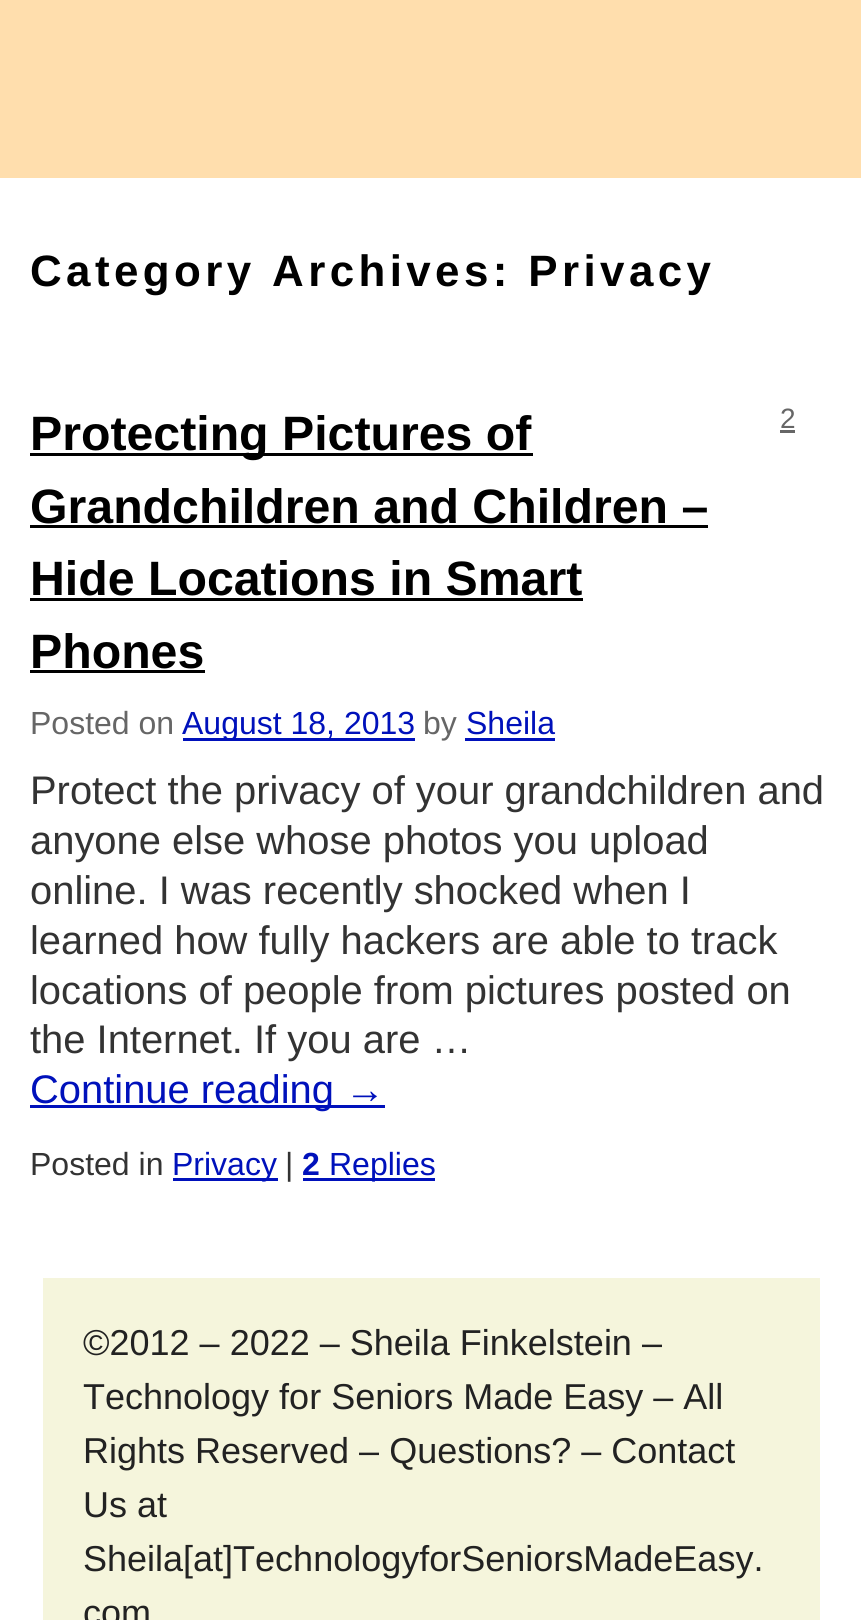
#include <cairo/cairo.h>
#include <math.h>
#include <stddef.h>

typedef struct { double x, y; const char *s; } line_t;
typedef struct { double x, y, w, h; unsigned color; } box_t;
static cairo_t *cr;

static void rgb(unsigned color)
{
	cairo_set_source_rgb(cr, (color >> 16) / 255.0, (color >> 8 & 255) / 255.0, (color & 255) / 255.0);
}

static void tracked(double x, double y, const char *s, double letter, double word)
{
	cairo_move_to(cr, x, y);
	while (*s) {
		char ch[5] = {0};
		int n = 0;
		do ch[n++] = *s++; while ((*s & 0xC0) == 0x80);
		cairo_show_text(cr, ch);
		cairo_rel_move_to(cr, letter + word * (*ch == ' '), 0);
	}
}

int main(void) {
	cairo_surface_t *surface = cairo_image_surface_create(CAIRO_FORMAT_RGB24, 861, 1620);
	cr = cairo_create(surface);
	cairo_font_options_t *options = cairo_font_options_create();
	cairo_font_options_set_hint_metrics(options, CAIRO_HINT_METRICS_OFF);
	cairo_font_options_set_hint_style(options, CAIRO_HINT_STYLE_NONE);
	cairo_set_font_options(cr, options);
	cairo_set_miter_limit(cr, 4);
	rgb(0xffffff);
	cairo_paint(cr);
	{
		static const box_t items[] = {
			{0, 0, 861, 178, 0xffdead},
			{30, 453, 503, 3, 0x000000},
			{30, 525, 678, 3, 0x000000},
			{30, 598, 553, 3, 0x000000},
			{30, 670, 175, 3, 0x000000},
			{780, 430, 15, 3, 0x666666},
			{183, 738, 232, 3, 0x0011bb},
			{465, 738, 90, 3, 0x0011bb},
			{30, 1105, 355, 3, 0x0011bb},
			{173, 1178, 105, 3, 0x0011bb},
			{303, 1178, 132, 3, 0x0011bb},
			{43, 1278, 777, 342, 0xf5f5dc},
		};
		for (size_t i = 0; i < sizeof items / sizeof *items; i++) {
			rgb(items[i].color);
			cairo_rectangle(cr, items[i].x, items[i].y, items[i].w, items[i].h);
			cairo_fill(cr);
		}
	}
	cairo_select_font_face(cr, "Liberation Sans", CAIRO_FONT_SLANT_NORMAL, CAIRO_FONT_WEIGHT_BOLD);
	cairo_set_font_size(cr, 43.9);
	rgb(0x000000);
	tracked(30, 286, "Category Archives: Privacy", 4.4, 0);
	cairo_set_font_size(cr, 48.25);
	{
		static const line_t items[] = {
			{30, 450, "Protecting Pictures of"},
			{30, 523, "Grandchildren and Children –"},
			{30, 595, "Hide Locations in Smart"},
			{30, 668, "Phones"},
		};
		for (size_t i = 0; i < sizeof items / sizeof *items; i++) {
			cairo_move_to(cr, items[i].x, items[i].y);
			cairo_show_text(cr, items[i].s);
		}
	}
	cairo_select_font_face(cr, "Liberation Sans", CAIRO_FONT_SLANT_NORMAL, CAIRO_FONT_WEIGHT_NORMAL);
	cairo_set_font_size(cr, 28);
	rgb(0x666666);
	cairo_move_to(cr, 780, 428);
	cairo_show_text(cr, "2");
	cairo_set_font_size(cr, 32);
	cairo_move_to(cr, 30, 734);
	cairo_show_text(cr, "Posted on");
	rgb(0x0011bb);
	cairo_move_to(cr, 182, 734);
	cairo_show_text(cr, "August 18, 2013");
	rgb(0x666666);
	cairo_move_to(cr, 423, 734);
	cairo_show_text(cr, "by");
	rgb(0x0011bb);
	cairo_move_to(cr, 466, 734);
	cairo_show_text(cr, "Sheila");
	cairo_set_font_size(cr, 39.9);
	rgb(0x333333);
	{
		static const line_t items[] = {
			{30, 804, "Protect the privacy of your grandchildren and"},
			{30, 854, "anyone else whose photos you upload"},
			{30, 904, "online. I was recently shocked when I"},
			{30, 954, "learned how fully hackers are able to track"},
			{30, 1004, "locations of people from pictures posted on"},
			{30, 1053, "the Internet. If you are …"},
		};
		for (size_t i = 0; i < sizeof items / sizeof *items; i++) {
			cairo_move_to(cr, items[i].x, items[i].y);
			cairo_show_text(cr, items[i].s);
		}
	}
	rgb(0x0011bb);
	cairo_move_to(cr, 30, 1103);
	cairo_show_text(cr, "Continue reading →");
	cairo_set_font_size(cr, 32);
	rgb(0x333333);
	cairo_move_to(cr, 30, 1175);
	cairo_show_text(cr, "Posted in");
	rgb(0x0011bb);
	cairo_move_to(cr, 172, 1175);
	cairo_show_text(cr, "Privacy");
	rgb(0x333333);
	cairo_move_to(cr, 285, 1175);
	cairo_show_text(cr, "|");
	cairo_select_font_face(cr, "Liberation Sans", CAIRO_FONT_SLANT_NORMAL, CAIRO_FONT_WEIGHT_BOLD);
	rgb(0x0011bb);
	cairo_move_to(cr, 302, 1175);
	cairo_show_text(cr, "2");
	cairo_select_font_face(cr, "Liberation Sans", CAIRO_FONT_SLANT_NORMAL, CAIRO_FONT_WEIGHT_NORMAL);
	cairo_move_to(cr, 329, 1175);
	cairo_show_text(cr, "Replies");
	cairo_set_font_size(cr, 36);
	rgb(0x222222);
	{
		static const line_t items[] = {
			{83, 1355, "©2012 – 2022 – Sheila Finkelstein –"},
			{83, 1409, "Technology for Seniors Made Easy – All"},
			{83, 1463, "Rights Reserved – Questions? – Contact"},
			{83, 1517, "Us at"},
			{83, 1571, "Sheila[at]TechnologyforSeniorsMadeEasy."},
			{83, 1625, "com"},
		};
		for (size_t i = 0; i < sizeof items / sizeof *items; i++) {
			cairo_move_to(cr, items[i].x, items[i].y);
			cairo_show_text(cr, items[i].s);
		}
	}
	cairo_surface_write_to_png(surface, "page.png");
	cairo_font_options_destroy(options);
	cairo_destroy(cr);
	cairo_surface_destroy(surface);
	return 0;
}
